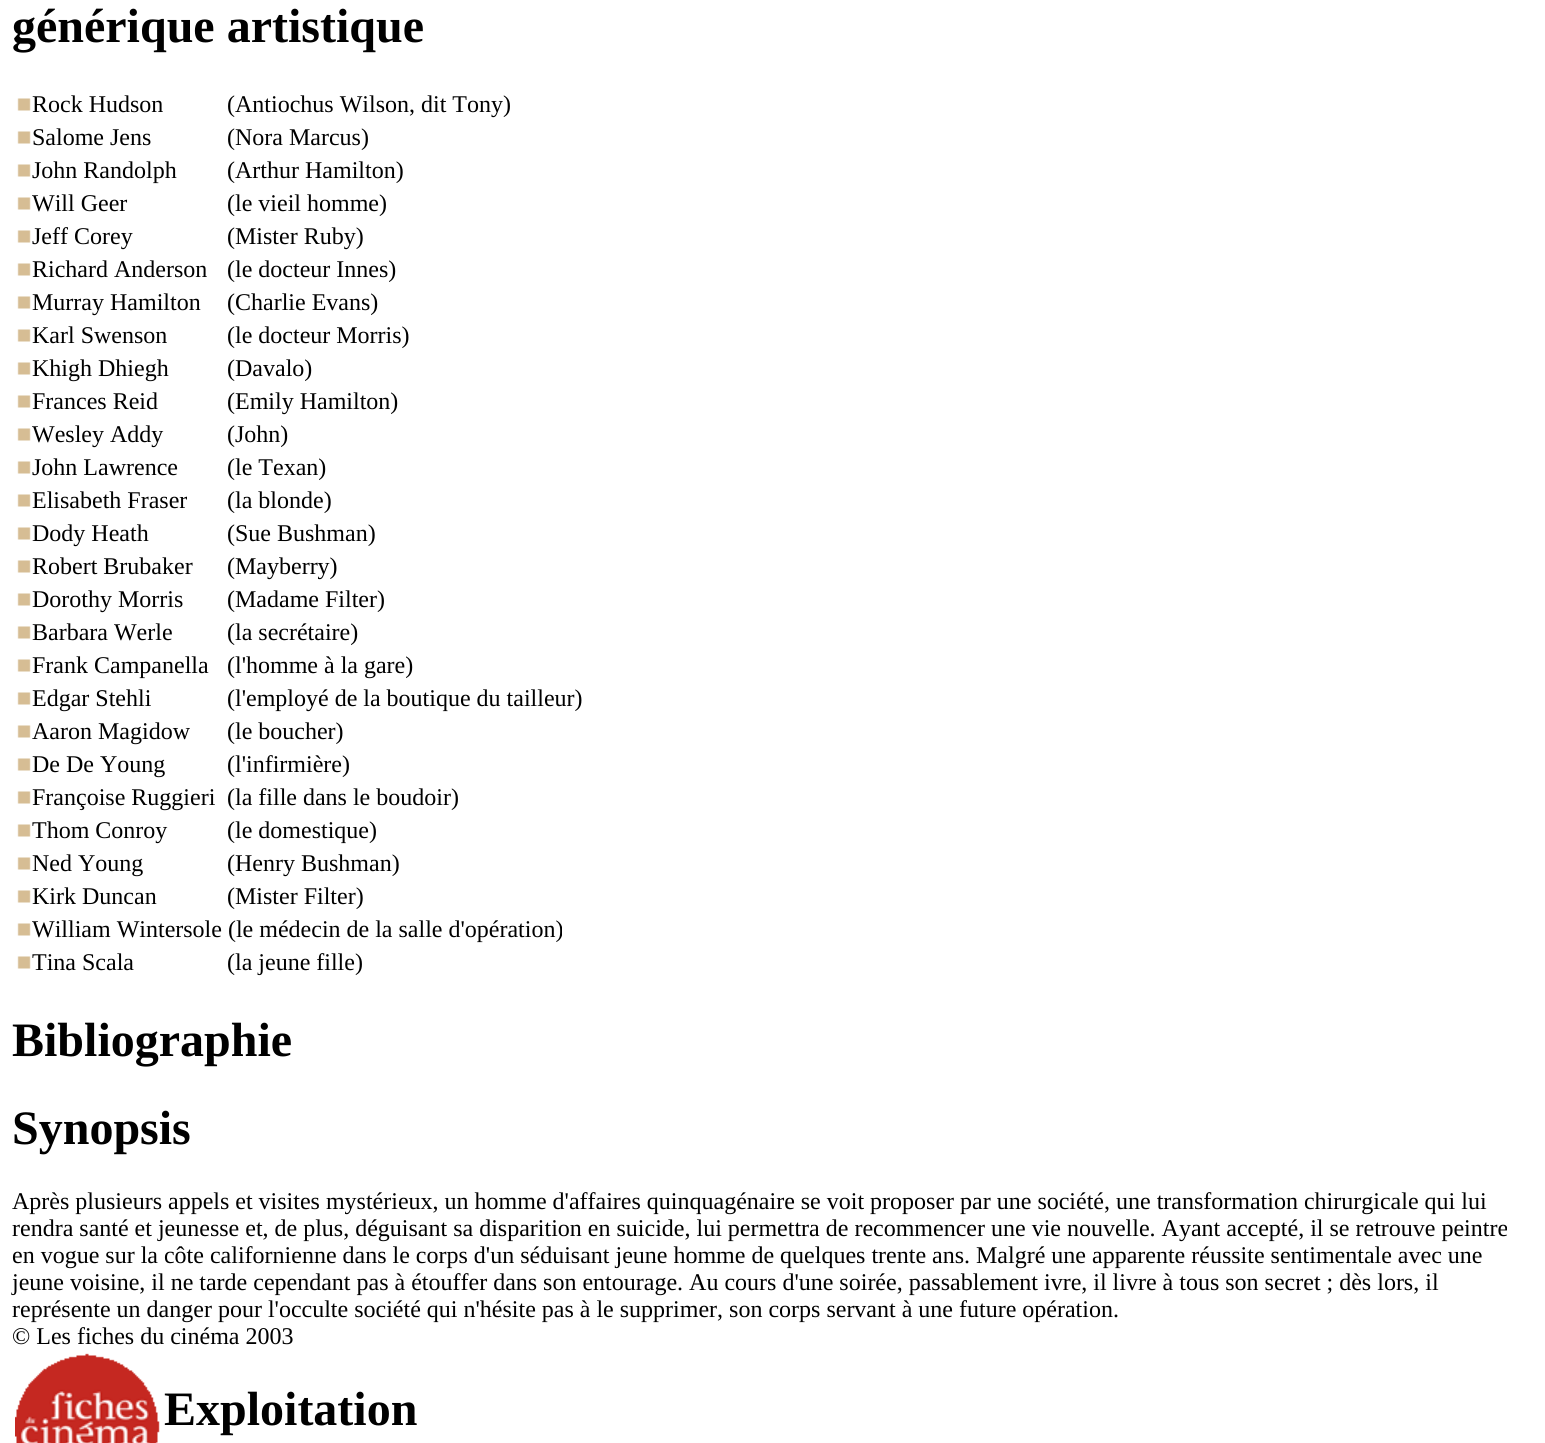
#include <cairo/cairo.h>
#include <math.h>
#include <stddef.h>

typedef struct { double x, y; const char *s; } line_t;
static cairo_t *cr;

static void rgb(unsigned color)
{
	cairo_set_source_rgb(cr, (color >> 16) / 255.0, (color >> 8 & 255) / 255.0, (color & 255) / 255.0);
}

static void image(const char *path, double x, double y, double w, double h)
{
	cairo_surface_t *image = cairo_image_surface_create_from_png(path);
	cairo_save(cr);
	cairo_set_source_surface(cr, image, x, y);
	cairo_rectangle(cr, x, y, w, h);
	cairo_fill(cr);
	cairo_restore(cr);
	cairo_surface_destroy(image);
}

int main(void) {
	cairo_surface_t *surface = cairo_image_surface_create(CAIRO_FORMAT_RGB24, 1545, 1443);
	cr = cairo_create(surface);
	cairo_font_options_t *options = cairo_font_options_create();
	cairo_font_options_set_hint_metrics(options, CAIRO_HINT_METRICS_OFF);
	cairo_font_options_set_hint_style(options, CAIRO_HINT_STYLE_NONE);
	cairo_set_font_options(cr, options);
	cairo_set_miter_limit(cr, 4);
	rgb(0xffffff);
	cairo_paint(cr);
	image("img/1.png", 17, 98, 14, 13);
	image("img/1.png", 17, 131, 14, 13);
	image("img/1.png", 17, 164, 14, 13);
	image("img/1.png", 17, 197, 14, 13);
	image("img/1.png", 17, 230, 14, 13);
	image("img/1.png", 17, 263, 14, 13);
	image("img/1.png", 17, 296, 14, 13);
	image("img/1.png", 17, 329, 14, 13);
	image("img/1.png", 17, 362, 14, 13);
	image("img/1.png", 17, 395, 14, 13);
	image("img/1.png", 17, 428, 14, 13);
	image("img/1.png", 17, 461, 14, 13);
	image("img/1.png", 17, 494, 14, 13);
	image("img/1.png", 17, 527, 14, 13);
	image("img/1.png", 17, 560, 14, 13);
	image("img/1.png", 17, 593, 14, 13);
	image("img/1.png", 17, 626, 14, 13);
	image("img/1.png", 17, 659, 14, 13);
	image("img/1.png", 17, 692, 14, 13);
	image("img/1.png", 17, 725, 14, 13);
	image("img/1.png", 17, 758, 14, 13);
	image("img/1.png", 17, 791, 14, 13);
	image("img/1.png", 17, 824, 14, 13);
	image("img/1.png", 17, 857, 14, 13);
	image("img/1.png", 17, 890, 14, 13);
	image("img/1.png", 17, 923, 14, 13);
	image("img/1.png", 17, 956, 14, 13);
	image("img/2.png", 15, 1353, 145, 90);
	cairo_select_font_face(cr, "Liberation Serif", CAIRO_FONT_SLANT_NORMAL, CAIRO_FONT_WEIGHT_BOLD);
	cairo_set_font_size(cr, 48);
	rgb(0x000000);
	cairo_move_to(cr, 12, 42);
	cairo_show_text(cr, "générique artistique");
	cairo_select_font_face(cr, "Liberation Serif", CAIRO_FONT_SLANT_NORMAL, CAIRO_FONT_WEIGHT_NORMAL);
	cairo_set_font_size(cr, 24);
	{
		static const line_t items[] = {
			{32, 112, "Rock Hudson"},
			{227, 112, "(Antiochus Wilson, dit Tony)"},
			{32, 145, "Salome Jens"},
			{227, 145, "(Nora Marcus)"},
			{32, 178, "John Randolph"},
			{227, 178, "(Arthur Hamilton)"},
			{32, 211, "Will Geer"},
			{227, 211, "(le vieil homme)"},
			{32, 244, "Jeff Corey"},
			{227, 244, "(Mister Ruby)"},
			{32, 277, "Richard Anderson"},
			{227, 277, "(le docteur Innes)"},
			{32, 310, "Murray Hamilton"},
			{227, 310, "(Charlie Evans)"},
			{32, 343, "Karl Swenson"},
			{227, 343, "(le docteur Morris)"},
			{32, 376, "Khigh Dhiegh"},
			{227, 376, "(Davalo)"},
			{32, 409, "Frances Reid"},
			{227, 409, "(Emily Hamilton)"},
			{32, 442, "Wesley Addy"},
			{227, 442, "(John)"},
			{32, 475, "John Lawrence"},
			{227, 475, "(le Texan)"},
			{32, 508, "Elisabeth Fraser"},
			{227, 508, "(la blonde)"},
			{32, 541, "Dody Heath"},
			{227, 541, "(Sue Bushman)"},
			{32, 574, "Robert Brubaker"},
			{227, 574, "(Mayberry)"},
			{32, 607, "Dorothy Morris"},
			{227, 607, "(Madame Filter)"},
			{32, 640, "Barbara Werle"},
			{227, 640, "(la secrétaire)"},
			{32, 673, "Frank Campanella"},
			{227, 673, "(l'homme à la gare)"},
			{32, 706, "Edgar Stehli"},
			{227, 706, "(l'employé de la boutique du tailleur)"},
			{32, 739, "Aaron Magidow"},
			{227, 739, "(le boucher)"},
			{32, 772, "De De Young"},
			{227, 772, "(l'infirmière)"},
			{32, 805, "Françoise Ruggieri"},
			{227, 805, "(la fille dans le boudoir)"},
			{32, 838, "Thom Conroy"},
			{227, 838, "(le domestique)"},
			{32, 871, "Ned Young"},
			{227, 871, "(Henry Bushman)"},
			{32, 904, "Kirk Duncan"},
			{227, 904, "(Mister Filter)"},
			{32, 937, "William Wintersole (le médecin de la salle d'opération)"},
			{32, 970, "Tina Scala"},
			{227, 970, "(la jeune fille)"},
		};
		for (size_t i = 0; i < sizeof items / sizeof *items; i++) {
			cairo_move_to(cr, items[i].x, items[i].y);
			cairo_show_text(cr, items[i].s);
		}
	}
	cairo_select_font_face(cr, "Liberation Serif", CAIRO_FONT_SLANT_NORMAL, CAIRO_FONT_WEIGHT_BOLD);
	cairo_set_font_size(cr, 48);
	cairo_move_to(cr, 12, 1056);
	cairo_show_text(cr, "Bibliographie");
	cairo_move_to(cr, 12, 1144);
	cairo_show_text(cr, "Synopsis");
	cairo_select_font_face(cr, "Liberation Serif", CAIRO_FONT_SLANT_NORMAL, CAIRO_FONT_WEIGHT_NORMAL);
	cairo_set_font_size(cr, 24);
	{
		static const line_t items[] = {
			{12, 1209, "Après plusieurs appels et visites mystérieux, un homme d'affaires quinquagénaire se voit proposer par une société, une transformation chirurgicale qui lui"},
			{12, 1236, "rendra santé et jeunesse et, de plus, déguisant sa disparition en suicide, lui permettra de recommencer une vie nouvelle. Ayant accepté, il se retrouve peintre"},
			{12, 1263, "en vogue sur la côte californienne dans le corps d'un séduisant jeune homme de quelques trente ans. Malgré une apparente réussite sentimentale avec une"},
			{12, 1290, "jeune voisine, il ne tarde cependant pas à étouffer dans son entourage. Au cours d'une soirée, passablement ivre, il livre à tous son secret ; dès lors, il"},
			{12, 1317, "représente un danger pour l'occulte société qui n'hésite pas à le supprimer, son corps servant à une future opération."},
			{12, 1344, "© Les fiches du cinéma 2003"},
		};
		for (size_t i = 0; i < sizeof items / sizeof *items; i++) {
			cairo_move_to(cr, items[i].x, items[i].y);
			cairo_show_text(cr, items[i].s);
		}
	}
	cairo_select_font_face(cr, "Liberation Serif", CAIRO_FONT_SLANT_NORMAL, CAIRO_FONT_WEIGHT_BOLD);
	cairo_set_font_size(cr, 48);
	cairo_move_to(cr, 164, 1425);
	cairo_show_text(cr, "Exploitation");
	cairo_surface_write_to_png(surface, "page.png");
	cairo_font_options_destroy(options);
	cairo_destroy(cr);
	cairo_surface_destroy(surface);
	return 0;
}
